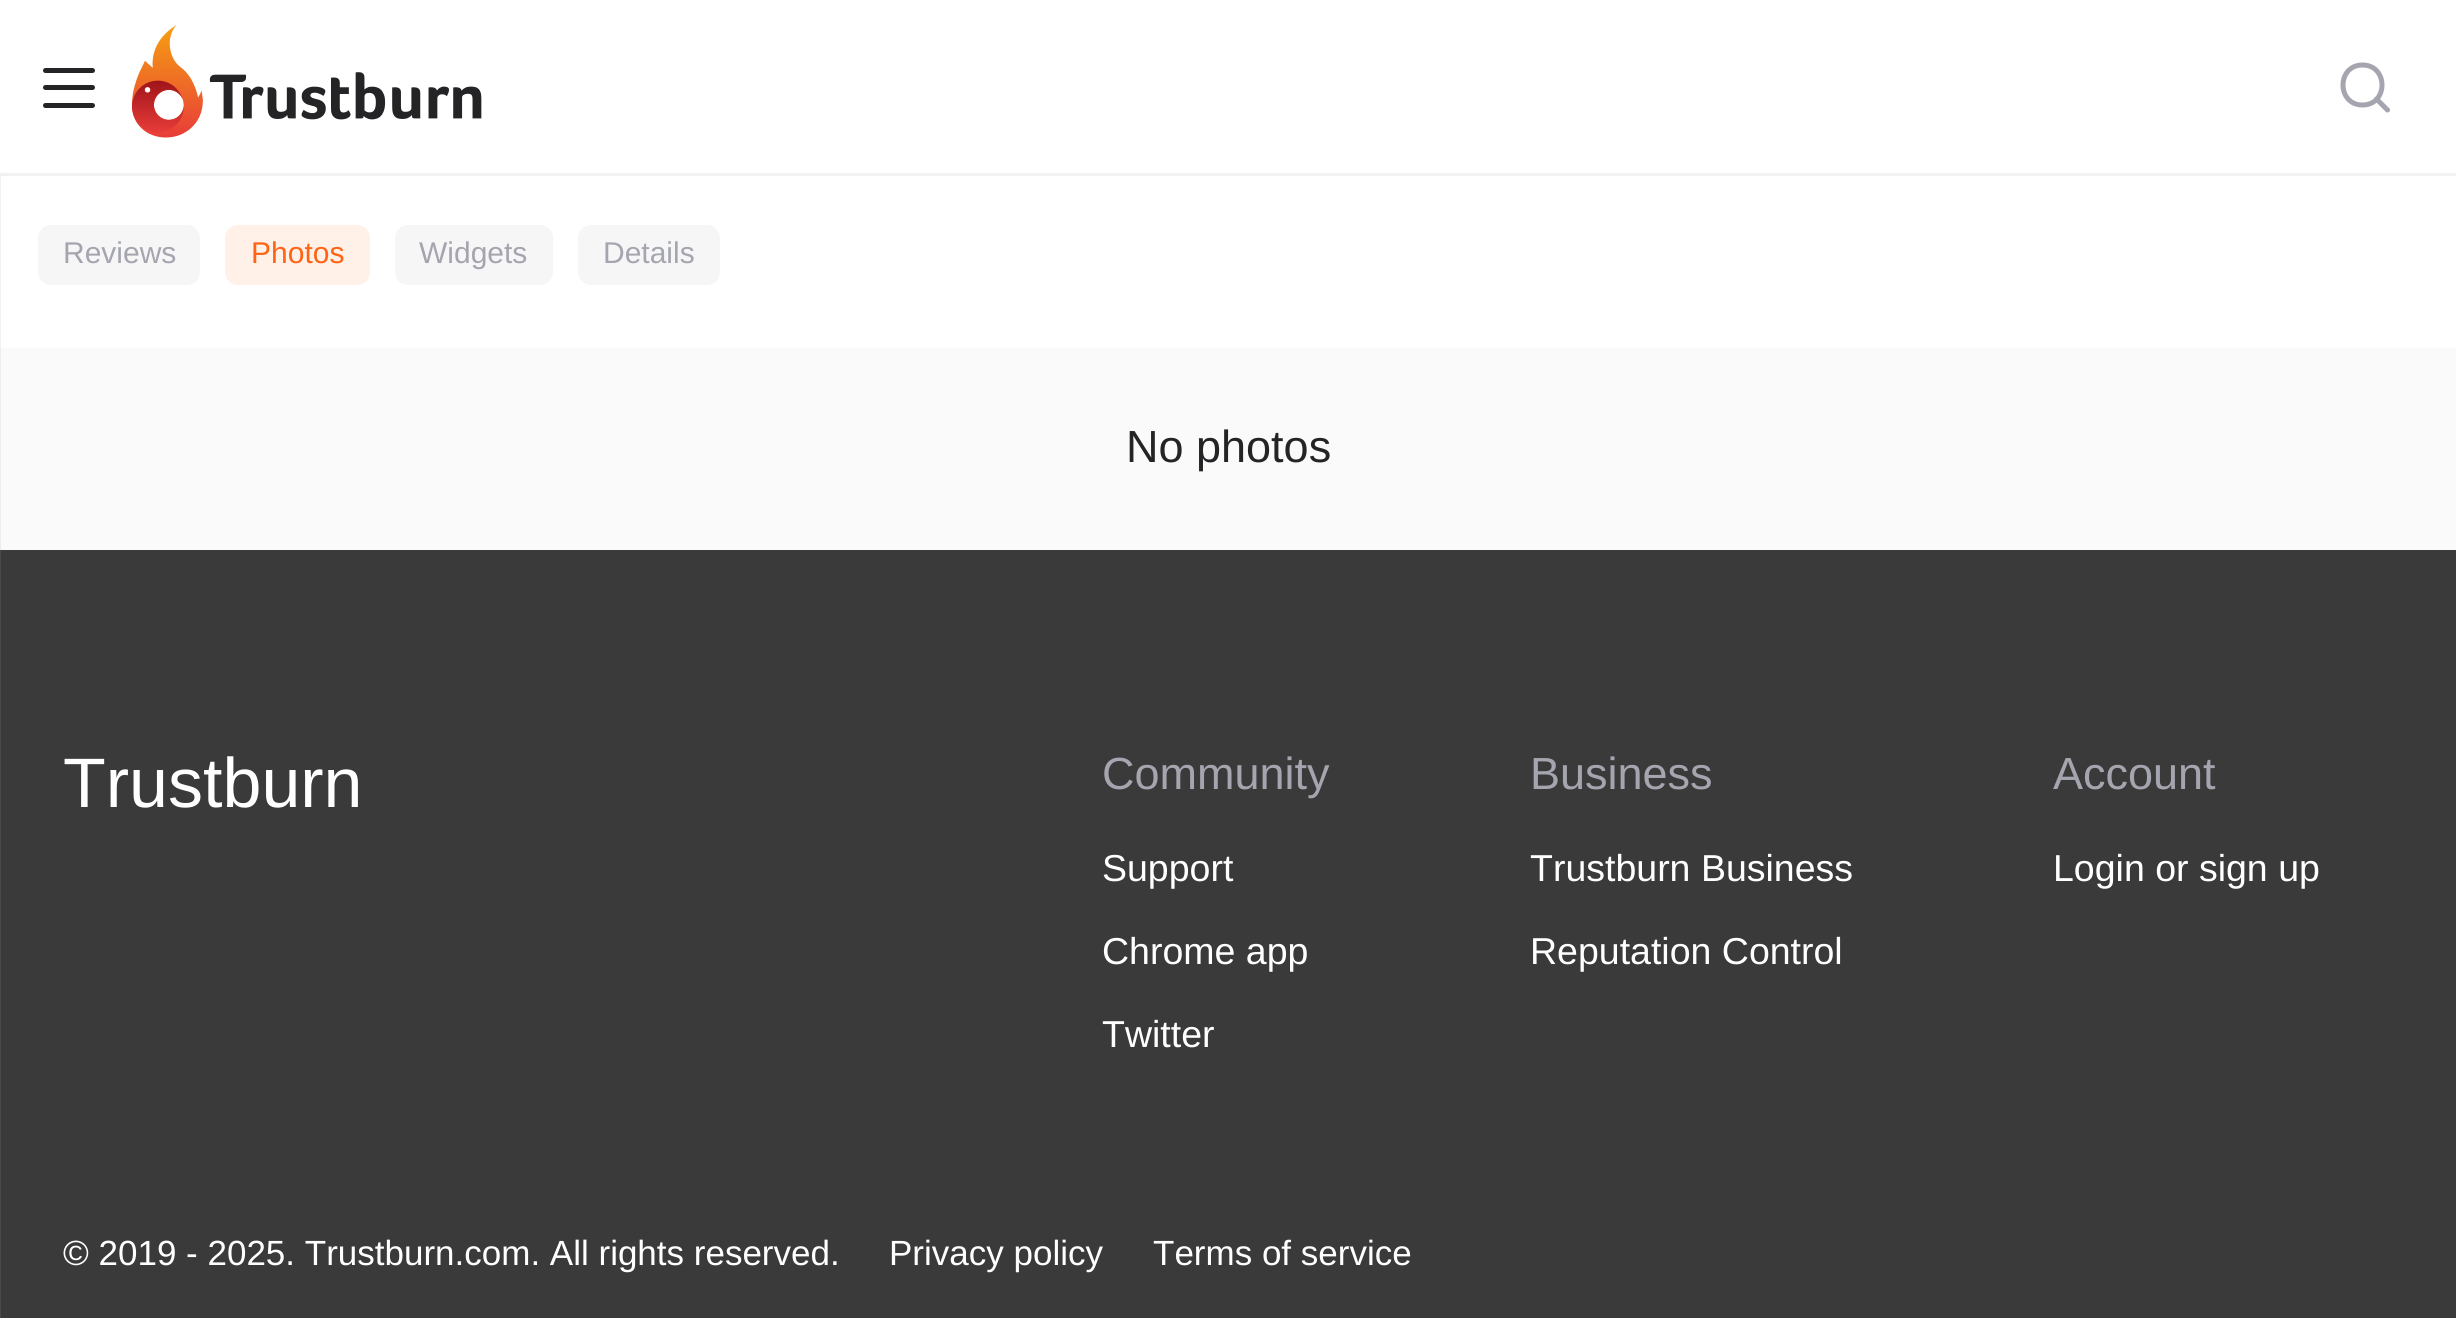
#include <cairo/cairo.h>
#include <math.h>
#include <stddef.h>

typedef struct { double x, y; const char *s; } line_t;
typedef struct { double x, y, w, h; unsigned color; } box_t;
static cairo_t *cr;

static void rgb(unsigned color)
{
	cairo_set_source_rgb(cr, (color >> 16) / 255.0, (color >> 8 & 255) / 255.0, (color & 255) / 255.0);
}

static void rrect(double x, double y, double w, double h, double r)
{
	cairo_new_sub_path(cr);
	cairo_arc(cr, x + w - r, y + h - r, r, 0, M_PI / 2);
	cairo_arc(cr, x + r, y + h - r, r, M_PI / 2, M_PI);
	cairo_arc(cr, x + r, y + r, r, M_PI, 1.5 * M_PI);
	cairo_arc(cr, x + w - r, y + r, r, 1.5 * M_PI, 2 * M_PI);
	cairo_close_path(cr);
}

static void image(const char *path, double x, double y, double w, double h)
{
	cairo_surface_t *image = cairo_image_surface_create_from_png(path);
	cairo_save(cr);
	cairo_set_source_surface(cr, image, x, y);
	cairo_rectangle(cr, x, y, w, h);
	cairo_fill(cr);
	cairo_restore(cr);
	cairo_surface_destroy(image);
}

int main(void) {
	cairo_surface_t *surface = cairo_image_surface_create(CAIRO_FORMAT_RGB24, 2456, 1318);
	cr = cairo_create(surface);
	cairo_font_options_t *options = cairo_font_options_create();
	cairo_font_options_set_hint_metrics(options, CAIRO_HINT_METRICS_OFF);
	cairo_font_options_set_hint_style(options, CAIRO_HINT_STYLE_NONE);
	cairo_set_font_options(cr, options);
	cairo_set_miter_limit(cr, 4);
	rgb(0xfafafa);
	cairo_paint(cr);
	rgb(0xffffff);
	cairo_rectangle(cr, 0, 0, 2456, 173);
	cairo_fill(cr);
	rgb(0x242426);
	rrect(43, 68, 52, 5, 2.5);
	cairo_fill(cr);
	rrect(43, 85, 52, 5, 2.5);
	cairo_fill(cr);
	rrect(43, 103, 52, 5, 2.5);
	cairo_fill(cr);
	image("img/1.png", 132, 25, 350, 113);
	cairo_new_path(cr);
	cairo_move_to(cr, 2362.5, 105);
	cairo_curve_to(cr, 2388.5, 105, 2388.5, 65, 2362.5, 65);
	cairo_curve_to(cr, 2336.5, 65, 2336.5, 105, 2362.5, 105);
	cairo_close_path(cr);
	cairo_move_to(cr, 2387.5, 110);
	cairo_line_to(cr, 2376.5, 99);
	rgb(0xa5a5af);
	cairo_set_line_width(cr, 5);
	cairo_set_line_cap(cr, CAIRO_LINE_CAP_ROUND);
	cairo_set_line_join(cr, CAIRO_LINE_JOIN_ROUND);
	cairo_stroke(cr);
	{
		static const box_t items[] = {
			{0, 348, 1, 202, 0xededef},
			{1, 176, 2455, 172, 0xffffff},
			{0, 173, 2456, 3, 0xf2f2f3},
			{0, 175, 1, 173, 0xf2f2f3},
			{0, 175, 1, 1, 0xe6e6e9},
		};
		for (size_t i = 0; i < sizeof items / sizeof *items; i++) {
			rgb(items[i].color);
			cairo_rectangle(cr, items[i].x, items[i].y, items[i].w, items[i].h);
			cairo_fill(cr);
		}
	}
	rgb(0xf6f6f7);
	rrect(38, 225, 162, 60, 13);
	cairo_fill(cr);
	rgb(0xfff0e8);
	rrect(225, 225, 145, 60, 13);
	cairo_fill(cr);
	rgb(0xf6f6f7);
	rrect(395, 225, 158, 60, 13);
	cairo_fill(cr);
	rrect(578, 225, 142, 60, 13);
	cairo_fill(cr);
	rgb(0x3a3a3a);
	cairo_rectangle(cr, 1, 550, 2455, 768);
	cairo_fill(cr);
	rgb(0x4a4a4c);
	cairo_rectangle(cr, 0, 550, 1, 768);
	cairo_fill(cr);
	cairo_select_font_face(cr, "Liberation Sans", CAIRO_FONT_SLANT_NORMAL, CAIRO_FONT_WEIGHT_NORMAL);
	cairo_set_font_size(cr, 30);
	rgb(0xa5a5af);
	cairo_move_to(cr, 63, 263);
	cairo_show_text(cr, "Reviews");
	rgb(0xff6414);
	cairo_move_to(cr, 251, 263);
	cairo_show_text(cr, "Photos");
	rgb(0xa5a5af);
	cairo_move_to(cr, 419, 263);
	cairo_show_text(cr, "Widgets");
	cairo_move_to(cr, 603, 263);
	cairo_show_text(cr, "Details");
	cairo_set_font_size(cr, 45);
	rgb(0x242426);
	cairo_move_to(cr, 1126, 462);
	cairo_show_text(cr, "No photos");
	cairo_set_font_size(cr, 70);
	rgb(0xffffff);
	cairo_move_to(cr, 63, 807);
	cairo_show_text(cr, "Trustburn");
	cairo_set_font_size(cr, 45);
	rgb(0xa5a5af);
	cairo_move_to(cr, 1102, 789);
	cairo_show_text(cr, "Community");
	cairo_set_font_size(cr, 37.5);
	rgb(0xffffff);
	{
		static const line_t items[] = {
			{1102, 881, "Support"},
			{1102, 964, "Chrome app"},
			{1102, 1047, "Twitter"},
		};
		for (size_t i = 0; i < sizeof items / sizeof *items; i++) {
			cairo_move_to(cr, items[i].x, items[i].y);
			cairo_show_text(cr, items[i].s);
		}
	}
	cairo_set_font_size(cr, 45);
	rgb(0xa5a5af);
	cairo_move_to(cr, 1530, 789);
	cairo_show_text(cr, "Business");
	cairo_set_font_size(cr, 37.5);
	rgb(0xffffff);
	cairo_move_to(cr, 1530, 881);
	cairo_show_text(cr, "Trustburn Business");
	cairo_move_to(cr, 1530, 964);
	cairo_show_text(cr, "Reputation Control");
	cairo_set_font_size(cr, 45);
	rgb(0xa5a5af);
	cairo_move_to(cr, 2053, 789);
	cairo_show_text(cr, "Account");
	cairo_set_font_size(cr, 37.5);
	rgb(0xffffff);
	cairo_move_to(cr, 2053, 881);
	cairo_show_text(cr, "Login or sign up");
	cairo_set_font_size(cr, 35);
	{
		static const line_t items[] = {
			{63, 1265, "© 2019 - 2025. Trustburn.com. All rights reserved."},
			{889, 1265, "Privacy policy"},
			{1153, 1265, "Terms of service"},
		};
		for (size_t i = 0; i < sizeof items / sizeof *items; i++) {
			cairo_move_to(cr, items[i].x, items[i].y);
			cairo_show_text(cr, items[i].s);
		}
	}
	cairo_surface_write_to_png(surface, "page.png");
	cairo_font_options_destroy(options);
	cairo_destroy(cr);
	cairo_surface_destroy(surface);
	return 0;
}
